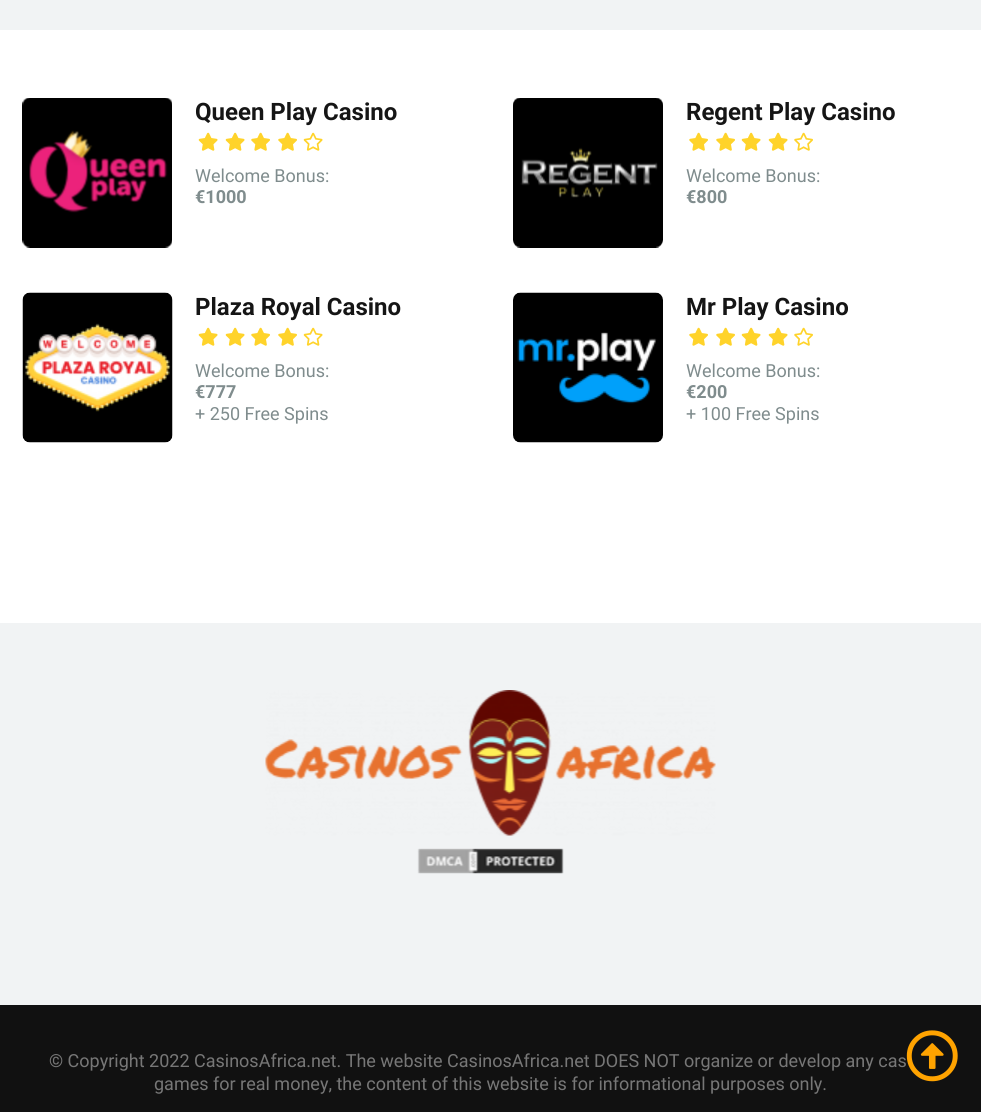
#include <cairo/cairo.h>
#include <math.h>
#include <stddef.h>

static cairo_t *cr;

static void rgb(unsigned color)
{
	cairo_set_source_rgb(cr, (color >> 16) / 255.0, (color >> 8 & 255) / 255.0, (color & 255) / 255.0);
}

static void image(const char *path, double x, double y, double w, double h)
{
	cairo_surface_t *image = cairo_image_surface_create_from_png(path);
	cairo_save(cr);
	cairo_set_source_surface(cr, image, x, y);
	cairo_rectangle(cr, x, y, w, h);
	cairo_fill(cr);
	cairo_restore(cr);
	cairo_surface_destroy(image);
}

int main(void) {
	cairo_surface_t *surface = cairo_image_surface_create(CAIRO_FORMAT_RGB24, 981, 1112);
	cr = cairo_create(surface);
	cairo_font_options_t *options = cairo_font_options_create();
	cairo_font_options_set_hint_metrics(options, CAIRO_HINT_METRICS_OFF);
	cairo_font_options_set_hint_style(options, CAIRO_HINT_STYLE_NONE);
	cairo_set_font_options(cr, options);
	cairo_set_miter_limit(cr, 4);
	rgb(0xffffff);
	cairo_paint(cr);
	rgb(0xf1f3f4);
	cairo_rectangle(cr, 0, 0, 981, 30);
	cairo_fill(cr);
	image("img/1.png", 22, 98, 150, 150);
	image("img/2.png", 198, 132, 20, 19);
	image("img/2.png", 225, 132, 20, 19);
	image("img/3.png", 251, 132, 19, 19);
	image("img/3.png", 278, 132, 19, 19);
	image("img/4.png", 303, 132, 20, 19);
	image("img/5.png", 513, 98, 150, 150);
	image("img/3.png", 689, 132, 19, 19);
	image("img/3.png", 716, 132, 19, 19);
	image("img/2.png", 741, 132, 20, 19);
	image("img/2.png", 768, 132, 20, 19);
	image("img/6.png", 794, 132, 19, 19);
	image("img/7.png", 22, 292, 151, 151);
	image("img/2.png", 198, 327, 20, 19);
	image("img/2.png", 225, 327, 20, 19);
	image("img/3.png", 251, 327, 19, 19);
	image("img/3.png", 278, 327, 19, 19);
	image("img/4.png", 303, 327, 20, 19);
	image("img/8.png", 513, 292, 150, 151);
	image("img/3.png", 689, 327, 19, 19);
	image("img/3.png", 716, 327, 19, 19);
	image("img/2.png", 741, 327, 20, 19);
	image("img/2.png", 768, 327, 20, 19);
	image("img/6.png", 794, 327, 19, 19);
	cairo_rectangle(cr, 0, 623, 981, 382);
	cairo_fill(cr);
	image("img/9.png", 265, 690, 451, 146);
	image("img/10.png", 417, 848, 147, 26);
	rgb(0x111111);
	cairo_rectangle(cr, 0, 1005, 981, 107);
	cairo_fill(cr);
	cairo_select_font_face(cr, "Roboto", CAIRO_FONT_SLANT_NORMAL, CAIRO_FONT_WEIGHT_BOLD);
	cairo_set_font_size(cr, 24);
	rgb(0x151515);
	cairo_move_to(cr, 195, 120);
	cairo_show_text(cr, "Queen Play Casino");
	cairo_select_font_face(cr, "Roboto", CAIRO_FONT_SLANT_NORMAL, CAIRO_FONT_WEIGHT_NORMAL);
	cairo_set_font_size(cr, 18);
	rgb(0x7f8c8d);
	cairo_move_to(cr, 195, 182);
	cairo_show_text(cr, "Welcome Bonus:");
	cairo_select_font_face(cr, "Roboto", CAIRO_FONT_SLANT_NORMAL, CAIRO_FONT_WEIGHT_BOLD);
	cairo_move_to(cr, 195, 203);
	cairo_show_text(cr, "€1000");
	cairo_set_font_size(cr, 24);
	rgb(0x151515);
	cairo_move_to(cr, 686, 120);
	cairo_show_text(cr, "Regent Play Casino");
	cairo_select_font_face(cr, "Roboto", CAIRO_FONT_SLANT_NORMAL, CAIRO_FONT_WEIGHT_NORMAL);
	cairo_set_font_size(cr, 18);
	rgb(0x7f8c8d);
	cairo_move_to(cr, 686, 182);
	cairo_show_text(cr, "Welcome Bonus:");
	cairo_select_font_face(cr, "Roboto", CAIRO_FONT_SLANT_NORMAL, CAIRO_FONT_WEIGHT_BOLD);
	cairo_move_to(cr, 686, 203);
	cairo_show_text(cr, "€800");
	cairo_set_font_size(cr, 24);
	rgb(0x151515);
	cairo_move_to(cr, 195, 315);
	cairo_show_text(cr, "Plaza Royal Casino");
	cairo_select_font_face(cr, "Roboto", CAIRO_FONT_SLANT_NORMAL, CAIRO_FONT_WEIGHT_NORMAL);
	cairo_set_font_size(cr, 18);
	rgb(0x7f8c8d);
	cairo_move_to(cr, 195, 377);
	cairo_show_text(cr, "Welcome Bonus:");
	cairo_select_font_face(cr, "Roboto", CAIRO_FONT_SLANT_NORMAL, CAIRO_FONT_WEIGHT_BOLD);
	cairo_move_to(cr, 195, 398);
	cairo_show_text(cr, "€777");
	cairo_select_font_face(cr, "Roboto", CAIRO_FONT_SLANT_NORMAL, CAIRO_FONT_WEIGHT_NORMAL);
	cairo_move_to(cr, 195, 420);
	cairo_show_text(cr, "+ 250 Free Spins");
	cairo_select_font_face(cr, "Roboto", CAIRO_FONT_SLANT_NORMAL, CAIRO_FONT_WEIGHT_BOLD);
	cairo_set_font_size(cr, 24);
	rgb(0x151515);
	cairo_move_to(cr, 686, 315);
	cairo_show_text(cr, "Mr Play Casino");
	cairo_select_font_face(cr, "Roboto", CAIRO_FONT_SLANT_NORMAL, CAIRO_FONT_WEIGHT_NORMAL);
	cairo_set_font_size(cr, 18);
	rgb(0x7f8c8d);
	cairo_move_to(cr, 686, 377);
	cairo_show_text(cr, "Welcome Bonus:");
	cairo_select_font_face(cr, "Roboto", CAIRO_FONT_SLANT_NORMAL, CAIRO_FONT_WEIGHT_BOLD);
	cairo_move_to(cr, 686, 398);
	cairo_show_text(cr, "€200");
	cairo_select_font_face(cr, "Roboto", CAIRO_FONT_SLANT_NORMAL, CAIRO_FONT_WEIGHT_NORMAL);
	cairo_move_to(cr, 686, 420);
	cairo_show_text(cr, "+ 100 Free Spins");
	rgb(0x777777);
	cairo_move_to(cr, 49, 1067);
	cairo_show_text(cr, "© Copyright 2022 CasinosAfrica.net. The website CasinosAfrica.net DOES NOT organize or develop any cas");
	cairo_move_to(cr, 154, 1090);
	cairo_show_text(cr, "games for real money, the content of this website is for informational purposes only.");
	image("img/11.png", 906, 1030, 52, 52);
	cairo_surface_write_to_png(surface, "page.png");
	cairo_font_options_destroy(options);
	cairo_destroy(cr);
	cairo_surface_destroy(surface);
	return 0;
}
